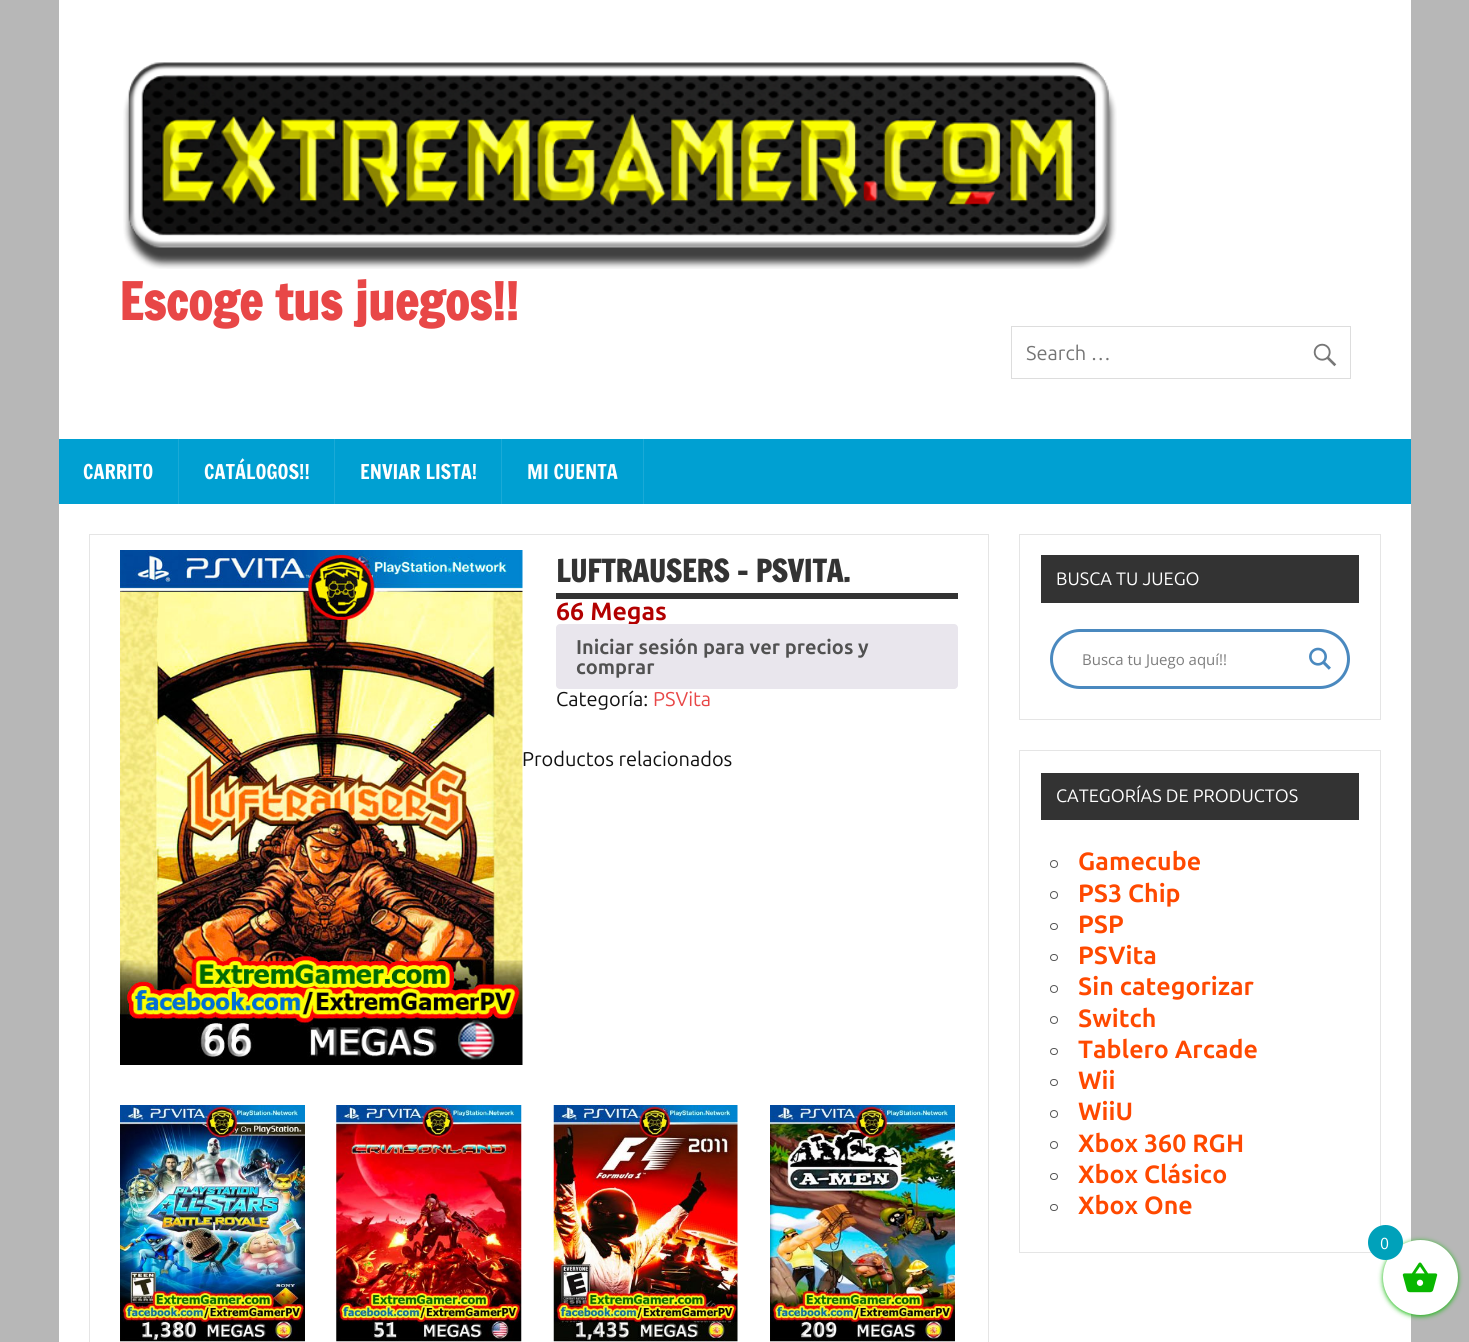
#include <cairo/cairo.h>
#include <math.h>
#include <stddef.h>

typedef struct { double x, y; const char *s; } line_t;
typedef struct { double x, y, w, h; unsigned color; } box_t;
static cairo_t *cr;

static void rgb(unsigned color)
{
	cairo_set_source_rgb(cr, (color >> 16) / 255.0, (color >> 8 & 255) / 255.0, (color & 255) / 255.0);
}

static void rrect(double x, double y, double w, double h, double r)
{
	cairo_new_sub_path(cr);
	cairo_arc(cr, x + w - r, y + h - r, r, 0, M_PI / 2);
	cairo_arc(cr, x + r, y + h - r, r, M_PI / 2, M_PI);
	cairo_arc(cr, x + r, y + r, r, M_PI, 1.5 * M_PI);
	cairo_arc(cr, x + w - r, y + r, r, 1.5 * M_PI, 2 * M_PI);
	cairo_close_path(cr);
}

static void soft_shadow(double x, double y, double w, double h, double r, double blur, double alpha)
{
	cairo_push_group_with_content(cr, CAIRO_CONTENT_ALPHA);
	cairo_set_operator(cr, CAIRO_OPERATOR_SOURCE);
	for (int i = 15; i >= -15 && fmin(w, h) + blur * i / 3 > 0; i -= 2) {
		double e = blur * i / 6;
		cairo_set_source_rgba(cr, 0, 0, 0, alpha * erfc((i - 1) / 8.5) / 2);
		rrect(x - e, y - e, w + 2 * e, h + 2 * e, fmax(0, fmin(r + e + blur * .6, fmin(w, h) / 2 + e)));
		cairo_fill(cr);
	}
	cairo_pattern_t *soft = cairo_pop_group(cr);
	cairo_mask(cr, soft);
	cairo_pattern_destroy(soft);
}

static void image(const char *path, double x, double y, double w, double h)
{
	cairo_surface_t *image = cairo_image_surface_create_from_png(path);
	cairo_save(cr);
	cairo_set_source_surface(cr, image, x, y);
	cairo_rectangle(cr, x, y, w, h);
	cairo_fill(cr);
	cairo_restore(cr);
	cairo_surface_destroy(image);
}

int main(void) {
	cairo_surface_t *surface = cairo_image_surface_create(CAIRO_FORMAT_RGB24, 1469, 1342);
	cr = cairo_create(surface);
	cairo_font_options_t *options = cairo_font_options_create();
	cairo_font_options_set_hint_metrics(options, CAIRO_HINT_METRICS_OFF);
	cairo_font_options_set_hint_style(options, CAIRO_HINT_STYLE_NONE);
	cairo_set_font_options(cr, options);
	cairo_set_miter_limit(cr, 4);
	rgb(0xb7b7b7);
	cairo_paint(cr);
	rgb(0xffffff);
	cairo_rectangle(cr, 59, 0, 1352, 1342);
	cairo_fill(cr);
	image("img/1.png", 123, 62, 994, 207);
	cairo_rectangle(cr, 1011.5, 326.5, 339, 52);
	rgb(0xdddddd);
	cairo_set_line_width(cr, 1);
	cairo_stroke(cr);
	image("img/2.png", 1313, 343, 24, 24);
	{
		static const box_t items[] = {
			{59, 439, 1352, 65, 0x00a0d2},
			{178, 439, 1, 65, 0x1aaad7},
			{334, 439, 1, 65, 0x1aaad7},
			{501, 439, 1, 65, 0x1aaad7},
			{643, 439, 1, 65, 0x1aaad7},
		};
		for (size_t i = 0; i < sizeof items / sizeof *items; i++) {
			rgb(items[i].color);
			cairo_rectangle(cr, items[i].x, items[i].y, items[i].w, items[i].h);
			cairo_fill(cr);
		}
	}
	cairo_rectangle(cr, 89.5, 534.5, 899, 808);
	rgb(0xe5e5e5);
	cairo_stroke(cr);
	image("img/3.png", 120, 550, 403, 515);
	rgb(0x333333);
	cairo_rectangle(cr, 556, 593, 402, 6);
	cairo_fill(cr);
	image("img/4.png", 120, 1105, 185, 237);
	image("img/5.png", 336, 1105, 186, 237);
	image("img/6.png", 553, 1105, 185, 237);
	image("img/7.png", 770, 1105, 185, 237);
	cairo_rectangle(cr, 1019.5, 534.5, 361, 185);
	rgb(0xe5e5e5);
	cairo_stroke(cr);
	rgb(0x333333);
	cairo_rectangle(cr, 1041, 555, 318, 48);
	cairo_fill(cr);
	rrect(1051.5, 630.5, 297, 57, 28.5);
	rgb(0x4a89bf);
	cairo_set_line_width(cr, 3);
	cairo_stroke(cr);
	image("img/8.png", 1309, 647, 22, 23);
	cairo_rectangle(cr, 1019.5, 750.5, 361, 502);
	rgb(0xe5e5e5);
	cairo_set_line_width(cr, 1);
	cairo_stroke(cr);
	rgb(0x333333);
	cairo_rectangle(cr, 1041, 773, 318, 47);
	cairo_fill(cr);
	cairo_arc(cr, 1054, 864, 3.5, 0, 2 * M_PI);
	rgb(0x555555);
	cairo_stroke(cr);
	cairo_arc(cr, 1054, 895, 3.5, 0, 2 * M_PI);
	cairo_stroke(cr);
	rrect(1050.5, 923.5, 7, 6, 3);
	cairo_stroke(cr);
	rrect(1050.5, 954.5, 7, 6, 3);
	cairo_stroke(cr);
	cairo_arc(cr, 1054, 989, 3.5, 0, 2 * M_PI);
	cairo_stroke(cr);
	cairo_arc(cr, 1054, 1020, 3.5, 0, 2 * M_PI);
	cairo_stroke(cr);
	rrect(1050.5, 1048.5, 7, 6, 3);
	cairo_stroke(cr);
	rrect(1050.5, 1079.5, 7, 6, 3);
	cairo_stroke(cr);
	cairo_arc(cr, 1054, 1114, 3.5, 0, 2 * M_PI);
	cairo_stroke(cr);
	cairo_arc(cr, 1054, 1145, 3.5, 0, 2 * M_PI);
	cairo_stroke(cr);
	rrect(1050.5, 1173.5, 7, 6, 3);
	cairo_stroke(cr);
	rrect(1050.5, 1204.5, 7, 6, 3);
	cairo_stroke(cr);
	rgb(0x09b700);
	soft_shadow(1383, 1241, 75, 75, 37.5, 2.5, 1);
	rgb(0xffffff);
	cairo_arc(cr, 1420.5, 1277.5, 37.5, 0, 2 * M_PI);
	cairo_fill(cr);
	rgb(0x00a1ba);
	cairo_arc(cr, 1385.5, 1242.5, 17.5, 0, 2 * M_PI);
	cairo_fill(cr);
	image("img/9.png", 1402, 1262, 36, 31);
	cairo_select_font_face(cr, "Francois One", CAIRO_FONT_SLANT_NORMAL, CAIRO_FONT_WEIGHT_BOLD);
	cairo_set_font_size(cr, 50);
	rgb(0xe84747);
	cairo_move_to(cr, 119, 320);
	cairo_show_text(cr, "Escoge tus juegos!!");
	cairo_select_font_face(cr, "Ubuntu", CAIRO_FONT_SLANT_NORMAL, CAIRO_FONT_WEIGHT_NORMAL);
	cairo_set_font_size(cr, 20);
	rgb(0x757575);
	cairo_move_to(cr, 1026, 360);
	cairo_show_text(cr, "Search …");
	cairo_select_font_face(cr, "Francois One", CAIRO_FONT_SLANT_NORMAL, CAIRO_FONT_WEIGHT_NORMAL);
	rgb(0xffffff);
	{
		static const line_t items[] = {
			{83, 479, "CARRITO"},
			{204, 479, "CATÁLOGOS!!"},
			{360, 479, "ENVIAR LISTA!"},
			{527, 479, "MI CUENTA"},
		};
		for (size_t i = 0; i < sizeof items / sizeof *items; i++) {
			cairo_move_to(cr, items[i].x, items[i].y);
			cairo_show_text(cr, items[i].s);
		}
	}
	cairo_select_font_face(cr, "Francois One", CAIRO_FONT_SLANT_NORMAL, CAIRO_FONT_WEIGHT_BOLD);
	cairo_set_font_size(cr, 30);
	rgb(0x333333);
	cairo_move_to(cr, 556, 582);
	cairo_show_text(cr, "LUFTRAUSERS – PSVITA.");
	cairo_select_font_face(cr, "Ubuntu", CAIRO_FONT_SLANT_NORMAL, CAIRO_FONT_WEIGHT_BOLD);
	cairo_set_font_size(cr, 25);
	rgb(0xb20000);
	cairo_move_to(cr, 556, 620);
	cairo_show_text(cr, "66 Megas");
	rgb(0xe9e6ed);
	rrect(556, 624, 402, 65, 4);
	cairo_fill(cr);
	cairo_set_font_size(cr, 20);
	rgb(0x515151);
	cairo_move_to(cr, 576, 654);
	cairo_show_text(cr, "Iniciar sesión para ver precios y");
	cairo_move_to(cr, 576, 674);
	cairo_show_text(cr, "comprar");
	cairo_select_font_face(cr, "Ubuntu", CAIRO_FONT_SLANT_NORMAL, CAIRO_FONT_WEIGHT_NORMAL);
	rgb(0x111111);
	cairo_move_to(cr, 556, 706);
	cairo_show_text(cr, "Categoría:");
	rgb(0xe84747);
	cairo_move_to(cr, 653, 706);
	cairo_show_text(cr, "PSVita");
	rgb(0x111111);
	cairo_move_to(cr, 522, 766);
	cairo_show_text(cr, "Productos relacionados");
	cairo_set_font_size(cr, 18);
	rgb(0xffffff);
	cairo_move_to(cr, 1056, 585);
	cairo_show_text(cr, "BUSCA TU JUEGO");
	cairo_select_font_face(cr, "Open Sans", CAIRO_FONT_SLANT_NORMAL, CAIRO_FONT_WEIGHT_NORMAL);
	cairo_set_font_size(cr, 15);
	rgb(0x7d7d7d);
	cairo_move_to(cr, 1082, 665);
	cairo_show_text(cr, "Busca tu Juego aquí!!");
	cairo_select_font_face(cr, "Ubuntu", CAIRO_FONT_SLANT_NORMAL, CAIRO_FONT_WEIGHT_NORMAL);
	cairo_set_font_size(cr, 18);
	rgb(0xffffff);
	cairo_move_to(cr, 1056, 802);
	cairo_show_text(cr, "CATEGORÍAS DE PRODUCTOS");
	cairo_select_font_face(cr, "Ubuntu", CAIRO_FONT_SLANT_NORMAL, CAIRO_FONT_WEIGHT_BOLD);
	cairo_set_font_size(cr, 25);
	rgb(0xff4900);
	{
		static const line_t items[] = {
			{1078, 870, "Gamecube"},
			{1078, 902, "PS3 Chip"},
			{1078, 933, "PSP"},
			{1078, 964, "PSVita"},
			{1078, 995, "Sin categorizar"},
			{1078, 1027, "Switch"},
			{1078, 1058, "Tablero Arcade"},
			{1078, 1089, "Wii"},
			{1078, 1120, "WiiU"},
			{1078, 1152, "Xbox 360 RGH"},
			{1078, 1183, "Xbox Clásico"},
			{1078, 1214, "Xbox One"},
		};
		for (size_t i = 0; i < sizeof items / sizeof *items; i++) {
			cairo_move_to(cr, items[i].x, items[i].y);
			cairo_show_text(cr, items[i].s);
		}
	}
	cairo_select_font_face(cr, "Ubuntu", CAIRO_FONT_SLANT_NORMAL, CAIRO_FONT_WEIGHT_NORMAL);
	cairo_set_font_size(cr, 16);
	rgb(0xffffff);
	cairo_move_to(cr, 1380, 1249);
	cairo_show_text(cr, "0");
	cairo_surface_write_to_png(surface, "page.png");
	cairo_font_options_destroy(options);
	cairo_destroy(cr);
	cairo_surface_destroy(surface);
	return 0;
}
